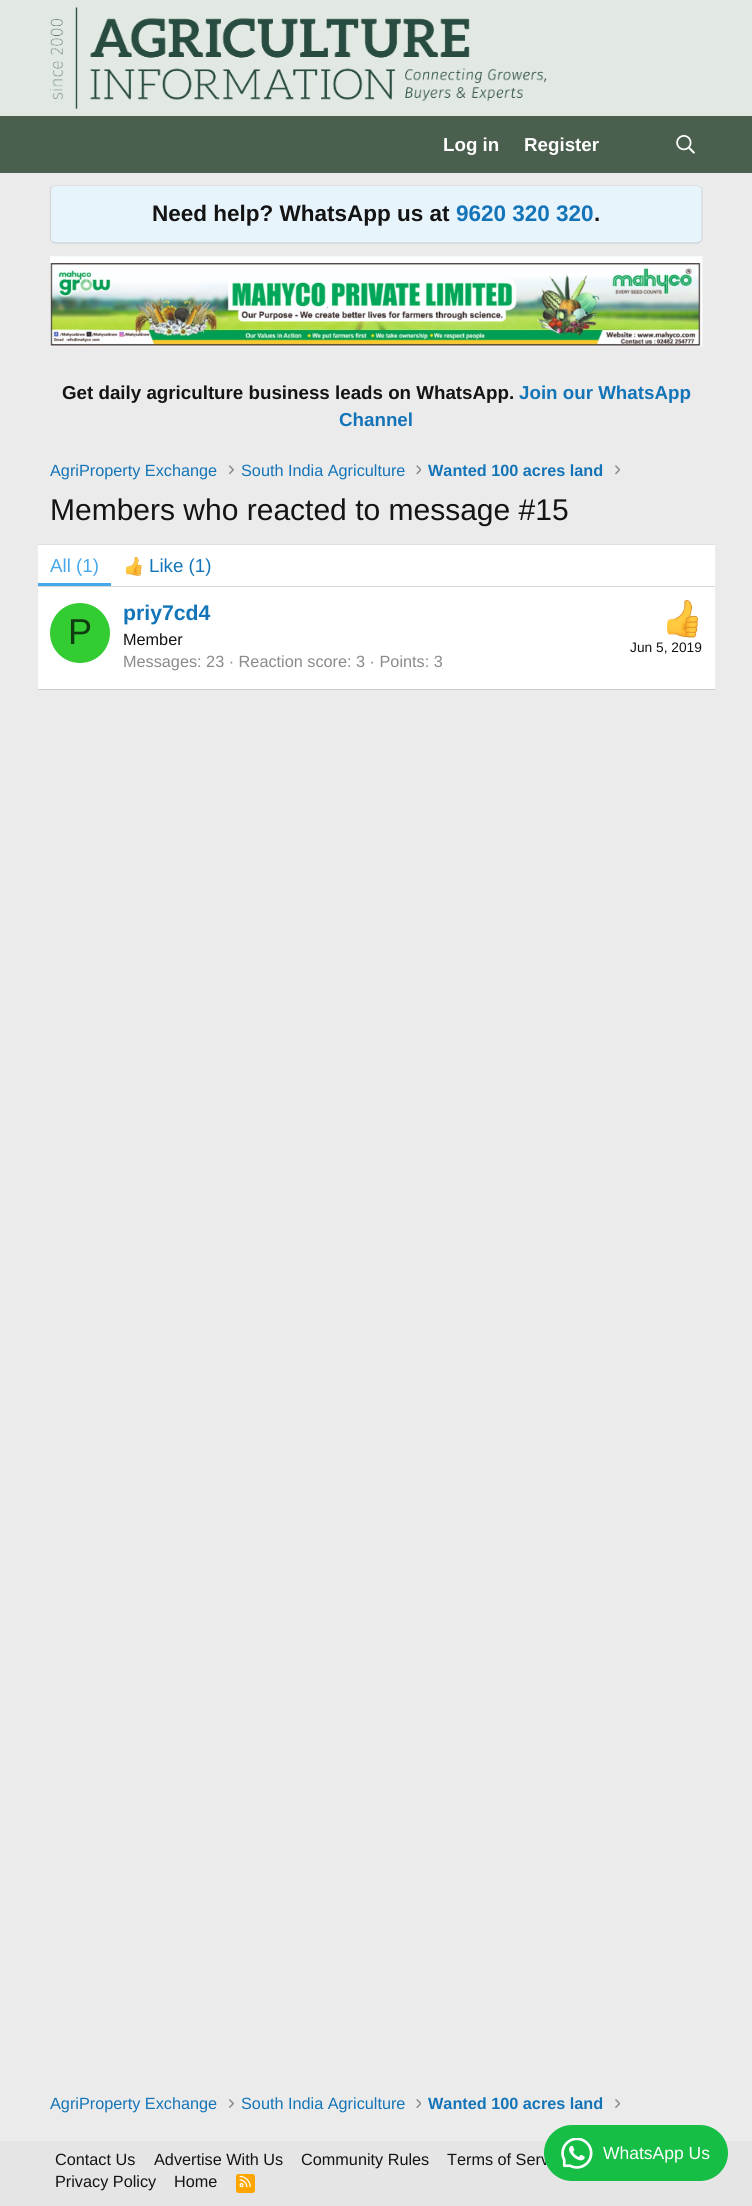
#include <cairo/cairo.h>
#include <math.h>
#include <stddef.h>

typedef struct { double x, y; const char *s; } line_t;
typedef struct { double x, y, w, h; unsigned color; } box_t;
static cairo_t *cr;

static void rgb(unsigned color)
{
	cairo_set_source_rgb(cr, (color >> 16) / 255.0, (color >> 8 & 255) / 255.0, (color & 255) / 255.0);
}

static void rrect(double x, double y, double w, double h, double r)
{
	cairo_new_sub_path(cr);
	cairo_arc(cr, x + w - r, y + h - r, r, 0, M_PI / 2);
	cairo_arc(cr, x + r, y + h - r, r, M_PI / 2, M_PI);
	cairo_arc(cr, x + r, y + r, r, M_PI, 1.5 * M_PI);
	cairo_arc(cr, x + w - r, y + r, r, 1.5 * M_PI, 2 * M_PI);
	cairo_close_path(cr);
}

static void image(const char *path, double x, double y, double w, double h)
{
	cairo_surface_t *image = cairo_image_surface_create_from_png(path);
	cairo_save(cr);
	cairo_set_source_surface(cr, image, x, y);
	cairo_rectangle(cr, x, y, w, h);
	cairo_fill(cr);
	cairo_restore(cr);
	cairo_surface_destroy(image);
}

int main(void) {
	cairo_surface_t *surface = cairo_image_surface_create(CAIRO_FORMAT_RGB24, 752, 2206);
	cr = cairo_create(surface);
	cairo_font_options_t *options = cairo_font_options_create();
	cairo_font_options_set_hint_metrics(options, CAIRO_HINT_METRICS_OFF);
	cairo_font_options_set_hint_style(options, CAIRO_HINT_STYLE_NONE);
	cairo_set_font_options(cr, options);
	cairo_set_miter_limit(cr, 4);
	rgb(0xebebeb);
	cairo_paint(cr);
	rgb(0xe2e9e3);
	cairo_rectangle(cr, 0, 0, 752, 116);
	cairo_fill(cr);
	image("img/1.png", 50, 7, 497, 102);
	rgb(0x4a5f4d);
	cairo_rectangle(cr, 0, 116, 752, 57);
	cairo_fill(cr);
	image("img/2.png", 676, 135, 19, 19);
	rgb(0xe8f4fc);
	rrect(50, 185, 653, 59, 5);
	cairo_fill(cr);
	cairo_new_path(cr);
	cairo_move_to(cr, 52, 187);
	cairo_line_to(cr, 55, 185.5);
	cairo_line_to(cr, 697.5, 185.5);
	cairo_line_to(cr, 700.5, 187);
	rgb(0xe0e0e0);
	cairo_set_line_width(cr, 1.2);
	cairo_stroke(cr);
	cairo_new_path(cr);
	cairo_move_to(cr, 700.5, 187);
	cairo_curve_to(cr, 701.5, 187.5, 702, 189, 702, 190);
	cairo_line_to(cr, 702, 239);
	cairo_curve_to(cr, 702, 240, 701.5, 241, 700.5, 242);
	rgb(0xd6d6d6);
	cairo_stroke(cr);
	cairo_new_path(cr);
	cairo_move_to(cr, 700.5, 242);
	cairo_line_to(cr, 697.5, 243);
	cairo_line_to(cr, 55, 243);
	cairo_line_to(cr, 52, 242);
	rgb(0xcccccc);
	cairo_stroke(cr);
	cairo_new_path(cr);
	cairo_move_to(cr, 52, 242);
	cairo_curve_to(cr, 51, 241, 50.5, 240, 50.5, 239);
	cairo_line_to(cr, 50.5, 190);
	cairo_curve_to(cr, 50.5, 189, 51, 187.5, 52, 187);
	rgb(0xd6d6d6);
	cairo_stroke(cr);
	image("img/3.png", 50, 256, 653, 91);
	image("img/4.png", 229, 465, 5, 10);
	image("img/5.png", 416, 465, 5, 10);
	image("img/6.png", 615, 465, 5, 10);
	{
		static const box_t items[] = {
			{38, 545, 677, 144, 0xffffff},
			{38, 544, 677, 1, 0xe0e0e0},
			{38, 689, 677, 1, 0xcccccc},
			{38, 586, 677, 1, 0xd6d6d6},
			{38, 583, 73, 3, 0x47a7eb},
		};
		for (size_t i = 0; i < sizeof items / sizeof *items; i++) {
			rgb(items[i].color);
			cairo_rectangle(cr, items[i].x, items[i].y, items[i].w, items[i].h);
			cairo_fill(cr);
		}
	}
	image("img/7.png", 125, 557, 17, 19);
	rgb(0x33cc33);
	cairo_arc(cr, 80, 633, 30, 0, 2 * M_PI);
	cairo_fill(cr);
	image("img/8.png", 667, 600, 31, 38);
	image("img/9.png", 229, 2099, 5, 9);
	image("img/10.png", 416, 2099, 5, 9);
	image("img/11.png", 615, 2099, 5, 9);
	rgb(0xe5e5e5);
	cairo_rectangle(cr, 0, 2141, 752, 65);
	cairo_fill(cr);
	rgb(0xffa500);
	rrect(236, 2174, 19, 19, 2.5);
	cairo_fill(cr);
	image("img/12.png", 239, 2175, 12, 13);
	cairo_select_font_face(cr, "Liberation Sans", CAIRO_FONT_SLANT_NORMAL, CAIRO_FONT_WEIGHT_BOLD);
	cairo_set_font_size(cr, 18.75);
	rgb(0xffffff);
	cairo_move_to(cr, 443, 151);
	cairo_show_text(cr, "Log in");
	cairo_move_to(cr, 524, 151);
	cairo_show_text(cr, "Register");
	cairo_set_font_size(cr, 22.5);
	rgb(0x141414);
	cairo_move_to(cr, 152, 221);
	cairo_show_text(cr, "Need help? WhatsApp us at");
	rgb(0x1474b8);
	cairo_move_to(cr, 456, 221);
	cairo_show_text(cr, "9620 320 320");
	rgb(0x141414);
	cairo_move_to(cr, 594, 221);
	cairo_show_text(cr, ".");
	cairo_set_font_size(cr, 18.75);
	cairo_move_to(cr, 62, 399);
	cairo_show_text(cr, "Get daily agriculture business leads on WhatsApp.");
	rgb(0x1474b8);
	cairo_move_to(cr, 519, 399);
	cairo_show_text(cr, "Join our WhatsApp");
	cairo_move_to(cr, 339, 426);
	cairo_show_text(cr, "Channel");
	cairo_select_font_face(cr, "Liberation Sans", CAIRO_FONT_SLANT_NORMAL, CAIRO_FONT_WEIGHT_NORMAL);
	cairo_set_font_size(cr, 16.25);
	cairo_move_to(cr, 50, 476);
	cairo_show_text(cr, "AgriProperty Exchange");
	cairo_move_to(cr, 241, 476);
	cairo_show_text(cr, "South India Agriculture");
	cairo_select_font_face(cr, "Liberation Sans", CAIRO_FONT_SLANT_NORMAL, CAIRO_FONT_WEIGHT_BOLD);
	cairo_move_to(cr, 428, 476);
	cairo_show_text(cr, "Wanted 100 acres land");
	cairo_select_font_face(cr, "Liberation Sans", CAIRO_FONT_SLANT_NORMAL, CAIRO_FONT_WEIGHT_NORMAL);
	cairo_set_font_size(cr, 30);
	rgb(0x141414);
	cairo_move_to(cr, 50, 520);
	cairo_show_text(cr, "Members who reacted to message #15");
	cairo_set_font_size(cr, 18.75);
	rgb(0x47a7eb);
	cairo_move_to(cr, 50, 572);
	cairo_show_text(cr, "All (1)");
	rgb(0x1474b8);
	cairo_move_to(cr, 149, 572);
	cairo_show_text(cr, "Like (1)");
	cairo_set_font_size(cr, 36);
	rgb(0x0f3d0f);
	cairo_move_to(cr, 68, 644);
	cairo_show_text(cr, "P");
	cairo_select_font_face(cr, "Liberation Sans", CAIRO_FONT_SLANT_NORMAL, CAIRO_FONT_WEIGHT_BOLD);
	cairo_set_font_size(cr, 21.25);
	rgb(0x1474b8);
	cairo_move_to(cr, 123, 620);
	cairo_show_text(cr, "priy7cd4");
	cairo_select_font_face(cr, "Liberation Sans", CAIRO_FONT_SLANT_NORMAL, CAIRO_FONT_WEIGHT_NORMAL);
	cairo_set_font_size(cr, 16.25);
	rgb(0x141414);
	cairo_move_to(cr, 123, 645);
	cairo_show_text(cr, "Member");
	cairo_set_font_size(cr, 13.75);
	cairo_move_to(cr, 630, 652);
	cairo_show_text(cr, "Jun 5, 2019");
	cairo_set_font_size(cr, 16.25);
	rgb(0x8a8a8a);
	cairo_move_to(cr, 123, 667);
	cairo_show_text(cr, "Messages: 23 · Reaction score: 3 · Points: 3");
	rgb(0x1474b8);
	cairo_move_to(cr, 50, 2109);
	cairo_show_text(cr, "AgriProperty Exchange");
	cairo_move_to(cr, 241, 2109);
	cairo_show_text(cr, "South India Agriculture");
	cairo_select_font_face(cr, "Liberation Sans", CAIRO_FONT_SLANT_NORMAL, CAIRO_FONT_WEIGHT_BOLD);
	cairo_move_to(cr, 428, 2109);
	cairo_show_text(cr, "Wanted 100 acres land");
	cairo_select_font_face(cr, "Liberation Sans", CAIRO_FONT_SLANT_NORMAL, CAIRO_FONT_WEIGHT_NORMAL);
	rgb(0x141414);
	{
		static const line_t items[] = {
			{55, 2165, "Contact Us"},
			{154, 2165, "Advertise With Us"},
			{301, 2165, "Community Rules"},
			{447, 2165, "Terms of Serv"},
			{55, 2187, "Privacy Policy"},
			{174, 2187, "Home"},
		};
		for (size_t i = 0; i < sizeof items / sizeof *items; i++) {
			cairo_move_to(cr, items[i].x, items[i].y);
			cairo_show_text(cr, items[i].s);
		}
	}
	rgb(0x16be45);
	rrect(544, 2125, 184, 56, 28);
	cairo_fill(cr);
	image("img/13.png", 561, 2138, 32, 31);
	cairo_set_font_size(cr, 17.5);
	rgb(0xffffff);
	cairo_move_to(cr, 603, 2159);
	cairo_show_text(cr, "WhatsApp Us");
	cairo_surface_write_to_png(surface, "page.png");
	cairo_font_options_destroy(options);
	cairo_destroy(cr);
	cairo_surface_destroy(surface);
	return 0;
}
